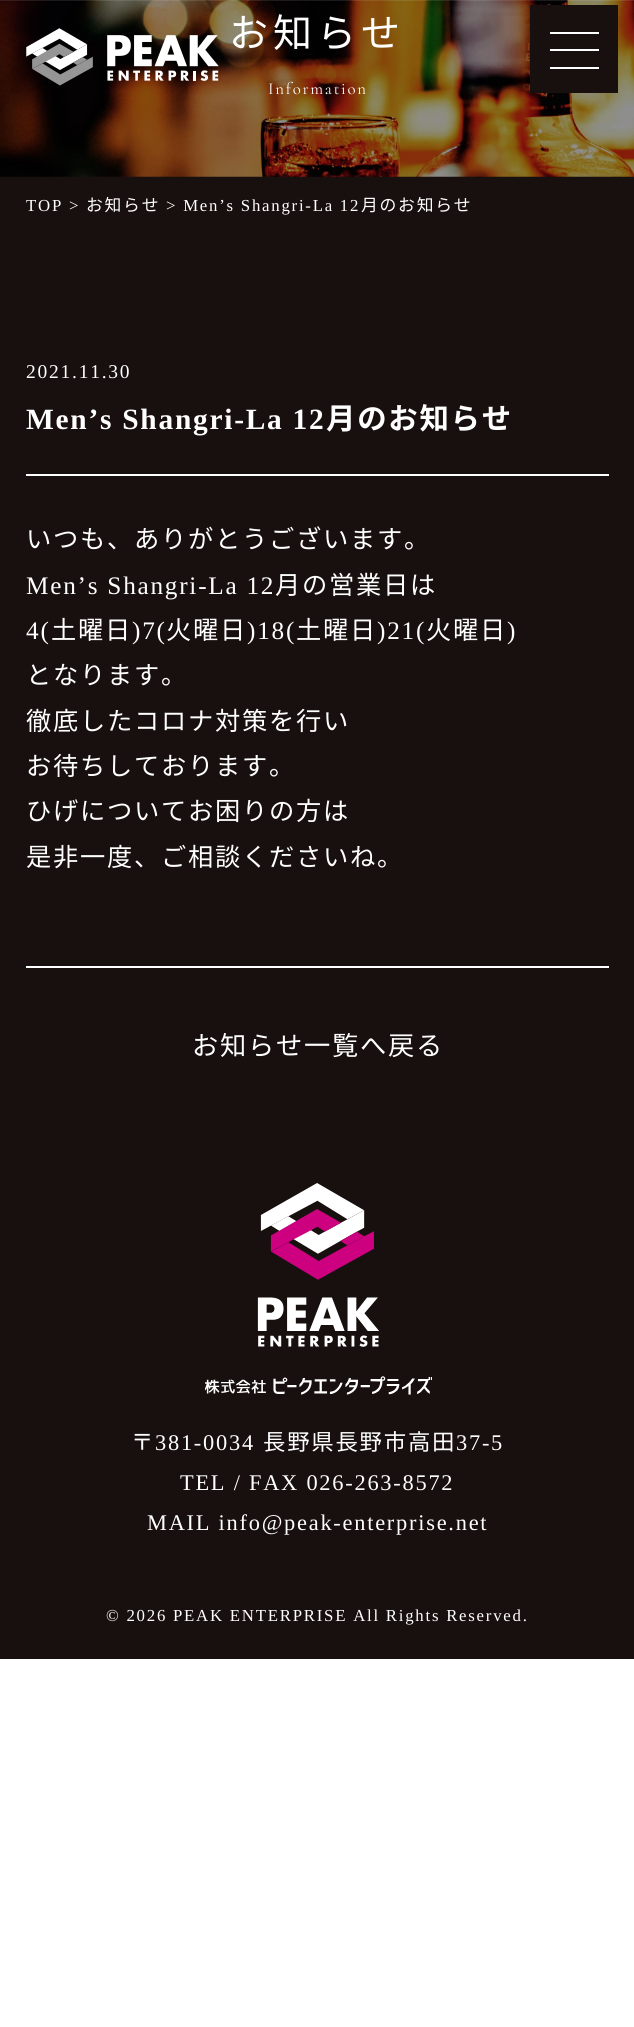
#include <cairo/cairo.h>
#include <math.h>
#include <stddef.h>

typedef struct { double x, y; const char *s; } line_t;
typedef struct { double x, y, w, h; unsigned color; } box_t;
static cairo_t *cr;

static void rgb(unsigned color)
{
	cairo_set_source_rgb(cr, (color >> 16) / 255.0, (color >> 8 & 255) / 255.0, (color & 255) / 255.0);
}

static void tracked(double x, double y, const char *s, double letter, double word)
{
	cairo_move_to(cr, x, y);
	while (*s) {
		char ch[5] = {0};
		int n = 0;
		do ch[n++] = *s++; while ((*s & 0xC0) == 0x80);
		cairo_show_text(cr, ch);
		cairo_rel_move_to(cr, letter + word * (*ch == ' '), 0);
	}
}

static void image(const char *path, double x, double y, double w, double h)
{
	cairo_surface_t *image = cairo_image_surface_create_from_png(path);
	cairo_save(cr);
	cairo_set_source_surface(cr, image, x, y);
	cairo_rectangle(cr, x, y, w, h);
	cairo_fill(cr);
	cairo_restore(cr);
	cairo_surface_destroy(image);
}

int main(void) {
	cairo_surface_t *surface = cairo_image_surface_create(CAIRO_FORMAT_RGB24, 634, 2027);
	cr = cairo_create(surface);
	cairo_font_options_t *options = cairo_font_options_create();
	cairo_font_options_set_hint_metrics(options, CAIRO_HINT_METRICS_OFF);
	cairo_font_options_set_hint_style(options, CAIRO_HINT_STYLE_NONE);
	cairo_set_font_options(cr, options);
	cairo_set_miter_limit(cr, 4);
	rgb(0xffffff);
	cairo_paint(cr);
	rgb(0x18100e);
	cairo_rectangle(cr, 0, 176, 634, 1483);
	cairo_fill(cr);
	image("img/2.png", 0, 0, 634, 177);
	image("img/1.png", 26, 28, 193, 58);
	{
		static const box_t items[] = {
			{530, 5, 88, 88, 0x18100e},
			{550, 32, 49, 2, 0xffffff},
			{550, 49, 49, 2, 0xffffff},
			{550, 67, 49, 2, 0xffffff},
			{26, 966, 583, 2, 0xffffff},
			{26, 474, 583, 2, 0xffffff},
		};
		for (size_t i = 0; i < sizeof items / sizeof *items; i++) {
			rgb(items[i].color);
			cairo_rectangle(cr, items[i].x, items[i].y, items[i].w, items[i].h);
			cairo_fill(cr);
		}
	}
	image("img/3.png", 205, 1183, 227, 212);
	cairo_select_font_face(cr, "Noto Sans JP", CAIRO_FONT_SLANT_NORMAL, CAIRO_FONT_WEIGHT_NORMAL);
	cairo_set_font_size(cr, 39);
	tracked(229, 47, "お知らせ", 5, 0);
	cairo_select_font_face(cr, "Cormorant Light", CAIRO_FONT_SLANT_NORMAL, CAIRO_FONT_WEIGHT_NORMAL);
	cairo_set_font_size(cr, 16.8);
	tracked(268, 94, "Information", 1.75, 0);
	cairo_select_font_face(cr, "Liberation Serif", CAIRO_FONT_SLANT_NORMAL, CAIRO_FONT_WEIGHT_NORMAL);
	tracked(26, 211, "TOP >", 1.75, 0);
	cairo_select_font_face(cr, "Noto Sans JP", CAIRO_FONT_SLANT_NORMAL, CAIRO_FONT_WEIGHT_NORMAL);
	tracked(86, 211, "お知らせ", 1.75, 0);
	cairo_select_font_face(cr, "Liberation Serif", CAIRO_FONT_SLANT_NORMAL, CAIRO_FONT_WEIGHT_NORMAL);
	tracked(166, 211, "> Men’s Shangri-La 12", 1.75, 0);
	cairo_select_font_face(cr, "Noto Sans JP", CAIRO_FONT_SLANT_NORMAL, CAIRO_FONT_WEIGHT_NORMAL);
	tracked(361, 211, "月のお知らせ", 1.75, 0);
	cairo_select_font_face(cr, "Liberation Serif", CAIRO_FONT_SLANT_NORMAL, CAIRO_FONT_WEIGHT_NORMAL);
	cairo_set_font_size(cr, 19.5);
	tracked(26, 378, "2021.11.30", 1.75, 0);
	cairo_select_font_face(cr, "Liberation Serif", CAIRO_FONT_SLANT_NORMAL, CAIRO_FONT_WEIGHT_BOLD);
	cairo_set_font_size(cr, 29.4);
	tracked(26, 429, "Men’s Shangri-La 12", 1.75, 0);
	cairo_select_font_face(cr, "Noto Sans JP", CAIRO_FONT_SLANT_NORMAL, CAIRO_FONT_WEIGHT_BOLD);
	tracked(326, 429, "月のお知らせ", 1.75, 0);
	cairo_select_font_face(cr, "Noto Sans JP", CAIRO_FONT_SLANT_NORMAL, CAIRO_FONT_WEIGHT_NORMAL);
	cairo_set_font_size(cr, 25.25);
	tracked(26, 548, "いつも、ありがとうございます。", 1.75, 0);
	cairo_select_font_face(cr, "Liberation Serif", CAIRO_FONT_SLANT_NORMAL, CAIRO_FONT_WEIGHT_NORMAL);
	tracked(26, 594, "Men’s Shangri-La 12", 1.75, 0);
	cairo_select_font_face(cr, "Noto Sans JP", CAIRO_FONT_SLANT_NORMAL, CAIRO_FONT_WEIGHT_NORMAL);
	tracked(275, 594, "月の営業日は", 1.75, 0);
	cairo_select_font_face(cr, "Liberation Serif", CAIRO_FONT_SLANT_NORMAL, CAIRO_FONT_WEIGHT_NORMAL);
	tracked(26, 639, "4(", 1.75, 0);
	cairo_select_font_face(cr, "Noto Sans JP", CAIRO_FONT_SLANT_NORMAL, CAIRO_FONT_WEIGHT_NORMAL);
	tracked(51, 639, "土曜日", 1.75, 0);
	cairo_select_font_face(cr, "Liberation Serif", CAIRO_FONT_SLANT_NORMAL, CAIRO_FONT_WEIGHT_NORMAL);
	tracked(132, 639, ")7(", 1.75, 0);
	cairo_select_font_face(cr, "Noto Sans JP", CAIRO_FONT_SLANT_NORMAL, CAIRO_FONT_WEIGHT_NORMAL);
	tracked(166, 639, "火曜日", 1.75, 0);
	cairo_select_font_face(cr, "Liberation Serif", CAIRO_FONT_SLANT_NORMAL, CAIRO_FONT_WEIGHT_NORMAL);
	tracked(247, 639, ")18(", 1.75, 0);
	cairo_select_font_face(cr, "Noto Sans JP", CAIRO_FONT_SLANT_NORMAL, CAIRO_FONT_WEIGHT_NORMAL);
	tracked(296, 639, "土曜日", 1.75, 0);
	cairo_select_font_face(cr, "Liberation Serif", CAIRO_FONT_SLANT_NORMAL, CAIRO_FONT_WEIGHT_NORMAL);
	tracked(377, 639, ")21(", 1.75, 0);
	cairo_select_font_face(cr, "Noto Sans JP", CAIRO_FONT_SLANT_NORMAL, CAIRO_FONT_WEIGHT_NORMAL);
	tracked(426, 639, "火曜日", 1.75, 0);
	cairo_select_font_face(cr, "Liberation Serif", CAIRO_FONT_SLANT_NORMAL, CAIRO_FONT_WEIGHT_NORMAL);
	tracked(507, 639, ")", 1.75, 0);
	cairo_select_font_face(cr, "Noto Sans JP", CAIRO_FONT_SLANT_NORMAL, CAIRO_FONT_WEIGHT_NORMAL);
	{
		static const line_t items[] = {
			{26, 684, "となります。"},
			{26, 730, "徹底したコロナ対策を行い"},
			{26, 775, "お待ちしております。"},
			{26, 820, "ひげについてお困りの方は"},
			{26, 866, "是非一度、ご相談くださいね。"},
		};
		for (size_t i = 0; i < sizeof items / sizeof *items; i++) {
			tracked(items[i].x, items[i].y, items[i].s, 1.75, 0);
		}
	}
	cairo_set_font_size(cr, 26.25);
	tracked(192, 1055, "お知らせ一覧へ戻る", 1.75, 0);
	cairo_set_font_size(cr, 22.4);
	tracked(131, 1450, "〒", 1.75, 0);
	cairo_select_font_face(cr, "Liberation Serif", CAIRO_FONT_SLANT_NORMAL, CAIRO_FONT_WEIGHT_NORMAL);
	tracked(155, 1450, "381-0034", 1.75, 0);
	cairo_select_font_face(cr, "Noto Sans JP", CAIRO_FONT_SLANT_NORMAL, CAIRO_FONT_WEIGHT_NORMAL);
	tracked(263, 1450, "長野県長野市高田", 1.75, 0);
	cairo_select_font_face(cr, "Liberation Serif", CAIRO_FONT_SLANT_NORMAL, CAIRO_FONT_WEIGHT_NORMAL);
	{
		static const line_t items[] = {
			{456, 1450, "37-5"},
			{180, 1490, "TEL / FAX 026-263-8572"},
			{147, 1530, "MAIL info@peak-enterprise.net"},
		};
		for (size_t i = 0; i < sizeof items / sizeof *items; i++) {
			tracked(items[i].x, items[i].y, items[i].s, 1.75, 0);
		}
	}
	cairo_set_font_size(cr, 16.8);
	tracked(106, 1621, "© 2026 PEAK ENTERPRISE All Rights Reserved.", 1.75, 0);
	cairo_surface_write_to_png(surface, "page.png");
	cairo_font_options_destroy(options);
	cairo_destroy(cr);
	cairo_surface_destroy(surface);
	return 0;
}
